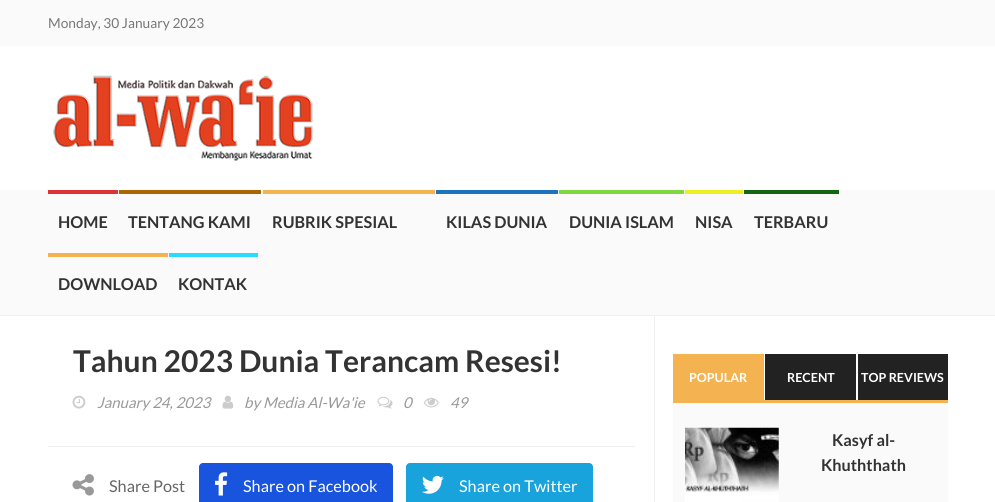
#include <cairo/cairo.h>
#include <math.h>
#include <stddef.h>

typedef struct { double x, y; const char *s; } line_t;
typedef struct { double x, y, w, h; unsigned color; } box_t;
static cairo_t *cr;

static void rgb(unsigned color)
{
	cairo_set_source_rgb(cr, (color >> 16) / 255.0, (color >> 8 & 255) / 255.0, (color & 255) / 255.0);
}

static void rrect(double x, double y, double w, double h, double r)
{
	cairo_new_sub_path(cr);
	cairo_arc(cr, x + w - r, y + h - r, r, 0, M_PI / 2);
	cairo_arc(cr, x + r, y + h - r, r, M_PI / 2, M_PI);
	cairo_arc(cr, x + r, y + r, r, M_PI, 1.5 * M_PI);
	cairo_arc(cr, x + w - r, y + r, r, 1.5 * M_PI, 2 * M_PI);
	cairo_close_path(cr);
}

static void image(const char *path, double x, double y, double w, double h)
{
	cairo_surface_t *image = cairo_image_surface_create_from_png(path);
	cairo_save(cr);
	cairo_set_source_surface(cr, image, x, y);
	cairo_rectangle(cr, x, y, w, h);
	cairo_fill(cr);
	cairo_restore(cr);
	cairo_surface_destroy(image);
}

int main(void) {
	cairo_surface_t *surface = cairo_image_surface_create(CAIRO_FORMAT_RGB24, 995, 502);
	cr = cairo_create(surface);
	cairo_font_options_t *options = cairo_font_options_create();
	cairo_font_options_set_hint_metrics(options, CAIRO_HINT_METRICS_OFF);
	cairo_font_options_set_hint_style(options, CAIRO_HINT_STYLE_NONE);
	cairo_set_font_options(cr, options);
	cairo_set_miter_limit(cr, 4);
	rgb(0xffffff);
	cairo_paint(cr);
	rgb(0xfafafa);
	cairo_rectangle(cr, 0, 0, 995, 315);
	cairo_fill(cr);
	rgb(0xffffff);
	cairo_rectangle(cr, 0, 46, 995, 144);
	cairo_fill(cr);
	image("img/1.png", 53, 75, 260, 86);
	{
		static const box_t items[] = {
			{0, 315, 995, 1, 0xf0f0f0},
			{48, 190, 70, 4, 0xdd3333},
			{119, 190, 142, 4, 0xaa6600},
			{263, 190, 172, 4, 0xf4b350},
			{436, 190, 122, 4, 0x1e73be},
			{559, 190, 125, 4, 0x81d742},
			{685, 190, 58, 4, 0xeeee22},
			{744, 190, 95, 4, 0x146613},
			{48, 253, 120, 4, 0xf4b350},
			{169, 253, 89, 4, 0x28dbff},
			{48, 446, 587, 1, 0xf0f0f0},
		};
		for (size_t i = 0; i < sizeof items / sizeof *items; i++) {
			rgb(items[i].color);
			cairo_rectangle(cr, items[i].x, items[i].y, items[i].w, items[i].h);
			cairo_fill(cr);
		}
	}
	image("img/2.png", 72, 395, 14, 14);
	image("img/3.png", 222, 395, 12, 14);
	image("img/4.png", 377, 396, 16, 13);
	image("img/5.png", 423, 397, 16, 11);
	image("img/6.png", 72, 474, 22, 22);
	rgb(0x1854dd);
	rrect(199, 463, 194, 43, 4);
	cairo_fill(cr);
	image("img/7.png", 215, 472, 13, 24);
	rgb(0x18a3dd);
	rrect(406, 463, 187, 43, 4);
	cairo_fill(cr);
	image("img/8.png", 422, 475, 22, 19);
	{
		static const box_t items[] = {
			{654, 316, 1, 186, 0xf0f0f0},
			{673, 400, 275, 3, 0xf4b350},
			{673, 354, 91, 46, 0xf4b350},
			{765, 354, 91, 46, 0x222222},
			{858, 354, 90, 46, 0x222222},
			{673, 403, 275, 99, 0xfafafa},
		};
		for (size_t i = 0; i < sizeof items / sizeof *items; i++) {
			rgb(items[i].color);
			cairo_rectangle(cr, items[i].x, items[i].y, items[i].w, items[i].h);
			cairo_fill(cr);
		}
	}
	image("img/9.png", 685, 427, 94, 75);
	cairo_select_font_face(cr, "Lato", CAIRO_FONT_SLANT_NORMAL, CAIRO_FONT_WEIGHT_NORMAL);
	cairo_set_font_size(cr, 13.75);
	rgb(0x777777);
	cairo_move_to(cr, 48, 28);
	cairo_show_text(cr, "Monday, 30 January 2023");
	cairo_select_font_face(cr, "Lato", CAIRO_FONT_SLANT_NORMAL, CAIRO_FONT_WEIGHT_BOLD);
	cairo_set_font_size(cr, 16.25);
	rgb(0x333333);
	{
		static const line_t items[] = {
			{58, 228, "HOME"},
			{128, 228, "TENTANG KAMI"},
			{272, 228, "RUBRIK SPESIAL"},
			{446, 228, "KILAS DUNIA"},
			{569, 228, "DUNIA ISLAM"},
			{695, 228, "NISA"},
			{754, 228, "TERBARU"},
			{58, 290, "DOWNLOAD"},
			{178, 290, "KONTAK"},
		};
		for (size_t i = 0; i < sizeof items / sizeof *items; i++) {
			cairo_move_to(cr, items[i].x, items[i].y);
			cairo_show_text(cr, items[i].s);
		}
	}
	cairo_set_font_size(cr, 30);
	cairo_move_to(cr, 73, 372);
	cairo_show_text(cr, "Tahun 2023 Dunia Terancam Resesi!");
	cairo_select_font_face(cr, "Lato", CAIRO_FONT_SLANT_ITALIC, CAIRO_FONT_WEIGHT_NORMAL);
	cairo_set_font_size(cr, 15);
	rgb(0x999999);
	{
		static const line_t items[] = {
			{97, 408, "January 24, 2023"},
			{244, 408, "by Media Al-Wa'ie"},
			{403, 408, "0"},
			{450, 408, "49"},
		};
		for (size_t i = 0; i < sizeof items / sizeof *items; i++) {
			cairo_move_to(cr, items[i].x, items[i].y);
			cairo_show_text(cr, items[i].s);
		}
	}
	cairo_select_font_face(cr, "Lato", CAIRO_FONT_SLANT_NORMAL, CAIRO_FONT_WEIGHT_NORMAL);
	cairo_set_font_size(cr, 16.25);
	rgb(0x666666);
	cairo_move_to(cr, 109, 492);
	cairo_show_text(cr, "Share Post");
	rgb(0xffffff);
	cairo_move_to(cr, 243, 492);
	cairo_show_text(cr, "Share on Facebook");
	cairo_move_to(cr, 459, 492);
	cairo_show_text(cr, "Share on Twitter");
	cairo_select_font_face(cr, "Lato", CAIRO_FONT_SLANT_NORMAL, CAIRO_FONT_WEIGHT_BOLD);
	cairo_set_font_size(cr, 12.5);
	{
		static const line_t items[] = {
			{689, 382, "POPULAR"},
			{787, 382, "RECENT"},
			{861, 382, "TOP REVIEWS"},
		};
		for (size_t i = 0; i < sizeof items / sizeof *items; i++) {
			cairo_move_to(cr, items[i].x, items[i].y);
			cairo_show_text(cr, items[i].s);
		}
	}
	cairo_set_font_size(cr, 16.25);
	rgb(0x333333);
	cairo_move_to(cr, 832, 446);
	cairo_show_text(cr, "Kasyf al-");
	cairo_move_to(cr, 821, 471);
	cairo_show_text(cr, "Khuththath");
	cairo_surface_write_to_png(surface, "page.png");
	cairo_font_options_destroy(options);
	cairo_destroy(cr);
	cairo_surface_destroy(surface);
	return 0;
}
